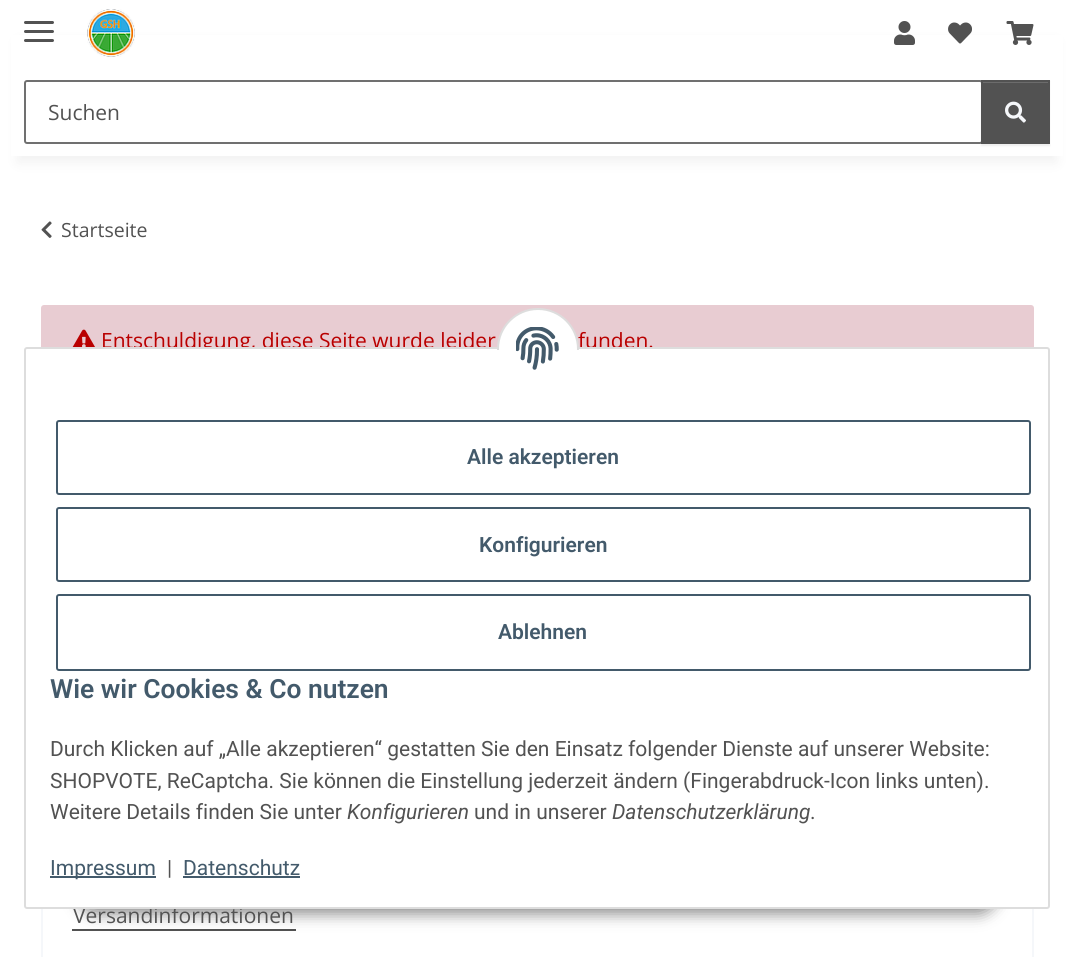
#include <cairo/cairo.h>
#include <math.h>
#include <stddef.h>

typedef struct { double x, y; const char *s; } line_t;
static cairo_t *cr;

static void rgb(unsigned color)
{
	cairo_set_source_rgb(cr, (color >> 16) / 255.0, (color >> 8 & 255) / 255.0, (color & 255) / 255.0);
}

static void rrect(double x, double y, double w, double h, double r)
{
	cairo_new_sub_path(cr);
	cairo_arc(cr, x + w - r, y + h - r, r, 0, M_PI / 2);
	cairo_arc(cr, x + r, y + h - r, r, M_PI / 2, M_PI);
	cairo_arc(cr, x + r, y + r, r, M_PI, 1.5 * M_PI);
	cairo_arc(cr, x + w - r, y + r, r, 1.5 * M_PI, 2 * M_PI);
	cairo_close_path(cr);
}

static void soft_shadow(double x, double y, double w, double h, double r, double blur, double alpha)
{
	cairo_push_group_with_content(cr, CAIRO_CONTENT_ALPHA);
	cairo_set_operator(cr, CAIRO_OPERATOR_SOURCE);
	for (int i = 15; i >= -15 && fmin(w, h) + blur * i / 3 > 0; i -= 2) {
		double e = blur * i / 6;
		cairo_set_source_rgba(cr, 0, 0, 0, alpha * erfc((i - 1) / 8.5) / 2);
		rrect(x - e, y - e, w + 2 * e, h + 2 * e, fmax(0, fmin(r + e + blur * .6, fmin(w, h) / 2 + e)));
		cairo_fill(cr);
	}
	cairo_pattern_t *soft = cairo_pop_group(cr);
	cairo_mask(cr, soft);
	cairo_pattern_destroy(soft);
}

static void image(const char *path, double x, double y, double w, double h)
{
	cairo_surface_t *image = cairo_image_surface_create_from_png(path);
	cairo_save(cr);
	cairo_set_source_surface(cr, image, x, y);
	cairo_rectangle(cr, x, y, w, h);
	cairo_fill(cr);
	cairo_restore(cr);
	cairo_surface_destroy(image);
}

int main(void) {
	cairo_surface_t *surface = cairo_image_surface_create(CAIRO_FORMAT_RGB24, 1073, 957);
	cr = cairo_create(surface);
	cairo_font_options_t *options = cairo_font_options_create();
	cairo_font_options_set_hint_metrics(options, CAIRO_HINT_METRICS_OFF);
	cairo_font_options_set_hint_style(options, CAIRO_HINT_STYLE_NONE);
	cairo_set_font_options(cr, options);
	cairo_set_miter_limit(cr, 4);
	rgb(0xffffff);
	cairo_paint(cr);
	rgb(0x000000);
	soft_shadow(18, 42, 1038, 120, 0, 7, 0.06);
	rgb(0xffffff);
	cairo_rectangle(cr, 11, 35, 1052, 121);
	cairo_fill(cr);
	rgb(0x525252);
	rrect(24, 30, 30, 3, 1.5);
	cairo_fill(cr);
	rrect(24, 21, 30, 3, 1.5);
	cairo_fill(cr);
	rrect(24, 39, 30, 3, 1.5);
	cairo_fill(cr);
	image("img/1.png", 87, 9, 48, 48);
	image("img/2.png", 894, 21, 21, 24);
	image("img/3.png", 948, 22, 24, 22);
	image("img/4.png", 1006, 21, 28, 24);
	rrect(25, 81, 957, 62, 2);
	rgb(0x707070);
	cairo_stroke(cr);
	rgb(0x000000);
	soft_shadow(981, 81, 69, 65, 0, 1, 0.07);
	rgb(0x525252);
	cairo_rectangle(cr, 983, 83, 65, 59);
	cairo_fill(cr);
	rgb(0x6c6c6c);
	cairo_rectangle(cr, 983, 82, 66, 1);
	cairo_fill(cr);
	cairo_rectangle(cr, 982, 81, 67, 62);
	rgb(0x525252);
	cairo_stroke(cr);
	image("img/5.png", 1005, 101, 21, 22);
	image("img/6.png", 41, 221, 11, 17);
	rgb(0xe8ccd2);
	rrect(42, 306, 991, 68, 2);
	cairo_fill_preserve(cr);
	cairo_stroke(cr);
	image("img/7.png", 72, 329, 23, 18);
	cairo_rectangle(cr, 42, 400, 991, 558);
	rgb(0xf5f7fa);
	cairo_stroke(cr);
	rgb(0x525252);
	cairo_rectangle(cr, 72, 929, 224, 2);
	cairo_fill(cr);
	rgb(0x000000);
	soft_shadow(77, 866, 921, 48, 24, 7.5, 0.45);
	cairo_select_font_face(cr, "Open Sans", CAIRO_FONT_SLANT_NORMAL, CAIRO_FONT_WEIGHT_NORMAL);
	cairo_set_font_size(cr, 21);
	rgb(0x525252);
	cairo_move_to(cr, 48, 120);
	cairo_show_text(cr, "Suchen");
	cairo_set_font_size(cr, 19.5);
	cairo_move_to(cr, 61, 237);
	cairo_show_text(cr, "Startseite");
	cairo_set_font_size(cr, 21);
	rgb(0xb90000);
	cairo_move_to(cr, 101, 348);
	cairo_show_text(cr, "Entschuldigung, diese Seite wurde leider");
	cairo_move_to(cr, 578, 348);
	cairo_show_text(cr, "funden.");
	rgb(0x525252);
	cairo_move_to(cr, 73, 923);
	cairo_show_text(cr, "Versandinformationen");
	rgb(0xffffff);
	rrect(25, 348, 1024, 560, 2);
	cairo_fill_preserve(cr);
	rgb(0xdddddd);
	cairo_stroke(cr);
	rgb(0xffffff);
	cairo_arc(cr, 538, 349, 40, 0, 2 * M_PI);
	cairo_fill_preserve(cr);
	rgb(0xdddddd);
	cairo_stroke(cr);
	rgb(0xffffff);
	cairo_rectangle(cr, 497, 350, 82, 40);
	cairo_fill(cr);
	image("img/8.png", 516, 327, 43, 43);
	rrect(57, 421, 973, 73, 2);
	rgb(0x435a6b);
	cairo_stroke(cr);
	cairo_select_font_face(cr, "Roboto SemiBold", CAIRO_FONT_SLANT_NORMAL, CAIRO_FONT_WEIGHT_NORMAL);
	cairo_move_to(cr, 467, 464);
	cairo_show_text(cr, "Alle akzeptieren");
	rrect(57, 508, 973, 73, 2);
	cairo_stroke(cr);
	cairo_move_to(cr, 479, 552);
	cairo_show_text(cr, "Konfigurieren");
	rrect(57, 595, 973, 75, 2);
	cairo_stroke(cr);
	cairo_move_to(cr, 498, 639);
	cairo_show_text(cr, "Ablehnen");
	cairo_set_font_size(cr, 26.4);
	cairo_move_to(cr, 50, 698);
	cairo_show_text(cr, "Wie wir Cookies & Co nutzen");
	cairo_select_font_face(cr, "Roboto", CAIRO_FONT_SLANT_NORMAL, CAIRO_FONT_WEIGHT_NORMAL);
	cairo_set_font_size(cr, 21);
	rgb(0x525252);
	{
		static const line_t items[] = {
			{50, 756, "Durch Klicken auf „Alle akzeptieren“ gestatten Sie den Einsatz folgender Dienste auf unserer Website:"},
			{50, 788, "SHOPVOTE, ReCaptcha. Sie können die Einstellung jederzeit ändern (Fingerabdruck-Icon links unten)."},
			{50, 819, "Weitere Details finden Sie unter"},
		};
		for (size_t i = 0; i < sizeof items / sizeof *items; i++) {
			cairo_move_to(cr, items[i].x, items[i].y);
			cairo_show_text(cr, items[i].s);
		}
	}
	cairo_select_font_face(cr, "Roboto", CAIRO_FONT_SLANT_ITALIC, CAIRO_FONT_WEIGHT_NORMAL);
	cairo_move_to(cr, 347, 819);
	cairo_show_text(cr, "Konfigurieren");
	cairo_select_font_face(cr, "Roboto", CAIRO_FONT_SLANT_NORMAL, CAIRO_FONT_WEIGHT_NORMAL);
	cairo_move_to(cr, 474, 819);
	cairo_show_text(cr, "und in unserer");
	cairo_select_font_face(cr, "Roboto", CAIRO_FONT_SLANT_ITALIC, CAIRO_FONT_WEIGHT_NORMAL);
	cairo_move_to(cr, 612, 819);
	cairo_show_text(cr, "Datenschutzerklärung");
	cairo_select_font_face(cr, "Roboto", CAIRO_FONT_SLANT_NORMAL, CAIRO_FONT_WEIGHT_NORMAL);
	cairo_move_to(cr, 810, 819);
	cairo_show_text(cr, ".");
	rgb(0x435a6b);
	cairo_rectangle(cr, 50, 876, 106, 2);
	cairo_fill(cr);
	cairo_move_to(cr, 50, 875);
	cairo_show_text(cr, "Impressum");
	rgb(0x525252);
	cairo_move_to(cr, 167, 875);
	cairo_show_text(cr, "|");
	rgb(0x435a6b);
	cairo_move_to(cr, 183, 875);
	cairo_show_text(cr, "Datenschutz");
	cairo_rectangle(cr, 183, 876, 117, 2);
	cairo_fill(cr);
	cairo_surface_write_to_png(surface, "page.png");
	cairo_font_options_destroy(options);
	cairo_destroy(cr);
	cairo_surface_destroy(surface);
	return 0;
}
